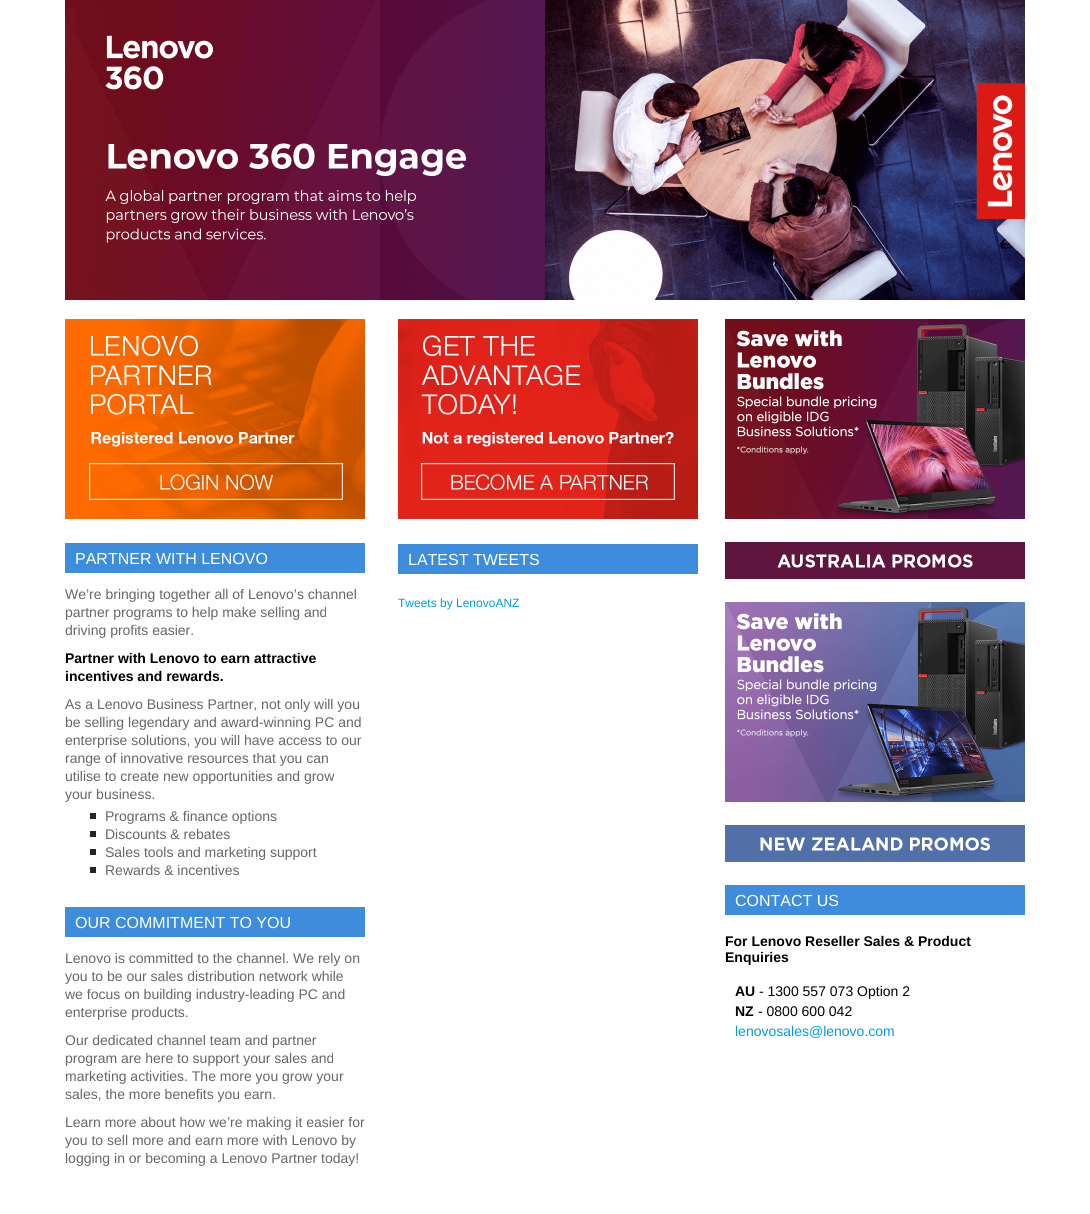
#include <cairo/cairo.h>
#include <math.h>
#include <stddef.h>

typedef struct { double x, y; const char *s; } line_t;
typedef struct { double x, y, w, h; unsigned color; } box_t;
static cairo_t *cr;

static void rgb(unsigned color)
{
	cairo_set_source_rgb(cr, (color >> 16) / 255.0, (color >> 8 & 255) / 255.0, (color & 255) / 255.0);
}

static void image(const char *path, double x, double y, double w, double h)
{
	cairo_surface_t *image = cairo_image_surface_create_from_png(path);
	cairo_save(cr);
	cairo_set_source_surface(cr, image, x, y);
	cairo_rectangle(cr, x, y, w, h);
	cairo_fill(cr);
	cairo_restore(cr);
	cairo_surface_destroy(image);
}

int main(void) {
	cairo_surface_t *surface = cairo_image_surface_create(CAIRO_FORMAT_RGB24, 1090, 1214);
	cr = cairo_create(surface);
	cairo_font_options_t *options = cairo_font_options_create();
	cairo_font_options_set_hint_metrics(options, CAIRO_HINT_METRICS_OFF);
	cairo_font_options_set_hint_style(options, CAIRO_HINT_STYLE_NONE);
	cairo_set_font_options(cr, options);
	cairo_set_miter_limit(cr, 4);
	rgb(0xffffff);
	cairo_paint(cr);
	image("img/1.png", 65, 0, 960, 300);
	image("img/2.png", 65, 319, 300, 200);
	{
		static const box_t items[] = {
			{65, 543, 300, 30, 0x3e8ddd},
			{90, 813, 6, 6, 0x252525},
			{90, 831, 6, 6, 0x252525},
			{90, 849, 6, 6, 0x252525},
			{90, 867, 6, 6, 0x252525},
			{65, 907, 300, 30, 0x3e8ddd},
		};
		for (size_t i = 0; i < sizeof items / sizeof *items; i++) {
			rgb(items[i].color);
			cairo_rectangle(cr, items[i].x, items[i].y, items[i].w, items[i].h);
			cairo_fill(cr);
		}
	}
	image("img/3.png", 398, 319, 300, 200);
	cairo_rectangle(cr, 398, 544, 300, 30);
	cairo_fill(cr);
	image("img/4.png", 725, 319, 300, 200);
	image("img/5.png", 725, 542, 300, 37);
	image("img/6.png", 725, 602, 300, 200);
	image("img/7.png", 725, 825, 300, 37);
	cairo_rectangle(cr, 725, 885, 300, 30);
	cairo_fill(cr);
	cairo_select_font_face(cr, "Liberation Sans", CAIRO_FONT_SLANT_NORMAL, CAIRO_FONT_WEIGHT_NORMAL);
	cairo_set_font_size(cr, 16);
	rgb(0xffffff);
	cairo_move_to(cr, 75, 564);
	cairo_show_text(cr, "PARTNER WITH LENOVO");
	cairo_set_font_size(cr, 14);
	rgb(0x666666);
	{
		static const line_t items[] = {
			{65, 599, "We’re bringing together all of Lenovo’s channel"},
			{65, 617, "partner programs to help make selling and"},
			{65, 635, "driving profits easier."},
		};
		for (size_t i = 0; i < sizeof items / sizeof *items; i++) {
			cairo_move_to(cr, items[i].x, items[i].y);
			cairo_show_text(cr, items[i].s);
		}
	}
	cairo_select_font_face(cr, "Liberation Sans", CAIRO_FONT_SLANT_NORMAL, CAIRO_FONT_WEIGHT_BOLD);
	rgb(0x000000);
	cairo_move_to(cr, 65, 663);
	cairo_show_text(cr, "Partner with Lenovo to earn attractive");
	cairo_move_to(cr, 65, 681);
	cairo_show_text(cr, "incentives and rewards.");
	cairo_select_font_face(cr, "Liberation Sans", CAIRO_FONT_SLANT_NORMAL, CAIRO_FONT_WEIGHT_NORMAL);
	rgb(0x666666);
	{
		static const line_t items[] = {
			{65, 709, "As a Lenovo Business Partner, not only will you"},
			{65, 727, "be selling legendary and award-winning PC and"},
			{65, 745, "enterprise solutions, you will have access to our"},
			{65, 763, "range of innovative resources that you can"},
			{65, 781, "utilise to create new opportunities and grow"},
			{65, 799, "your business."},
			{105, 821, "Programs & finance options"},
			{105, 839, "Discounts & rebates"},
			{105, 857, "Sales tools and marketing support"},
			{105, 875, "Rewards & incentives"},
		};
		for (size_t i = 0; i < sizeof items / sizeof *items; i++) {
			cairo_move_to(cr, items[i].x, items[i].y);
			cairo_show_text(cr, items[i].s);
		}
	}
	cairo_set_font_size(cr, 16);
	rgb(0xffffff);
	cairo_move_to(cr, 75, 928);
	cairo_show_text(cr, "OUR COMMITMENT TO YOU");
	cairo_set_font_size(cr, 14);
	rgb(0x666666);
	{
		static const line_t items[] = {
			{65, 963, "Lenovo is committed to the channel. We rely on"},
			{65, 981, "you to be our sales distribution network while"},
			{65, 999, "we focus on building industry-leading PC and"},
			{65, 1017, "enterprise products."},
			{65, 1045, "Our dedicated channel team and partner"},
			{65, 1063, "program are here to support your sales and"},
			{65, 1081, "marketing activities. The more you grow your"},
			{65, 1099, "sales, the more benefits you earn."},
			{65, 1127, "Learn more about how we’re making it easier for"},
			{65, 1145, "you to sell more and earn more with Lenovo by"},
			{65, 1163, "logging in or becoming a Lenovo Partner today!"},
		};
		for (size_t i = 0; i < sizeof items / sizeof *items; i++) {
			cairo_move_to(cr, items[i].x, items[i].y);
			cairo_show_text(cr, items[i].s);
		}
	}
	cairo_set_font_size(cr, 16);
	rgb(0xffffff);
	cairo_move_to(cr, 408, 565);
	cairo_show_text(cr, "LATEST TWEETS");
	cairo_set_font_size(cr, 12);
	rgb(0x009dd9);
	cairo_move_to(cr, 398, 607);
	cairo_show_text(cr, "Tweets by LenovoANZ");
	cairo_set_font_size(cr, 16);
	rgb(0xffffff);
	cairo_move_to(cr, 735, 906);
	cairo_show_text(cr, "CONTACT US");
	cairo_select_font_face(cr, "Liberation Sans", CAIRO_FONT_SLANT_NORMAL, CAIRO_FONT_WEIGHT_BOLD);
	cairo_set_font_size(cr, 14);
	rgb(0x000000);
	{
		static const line_t items[] = {
			{725, 946, "For Lenovo Reseller Sales & Product"},
			{725, 962, "Enquiries"},
			{735, 996, "AU"},
		};
		for (size_t i = 0; i < sizeof items / sizeof *items; i++) {
			cairo_move_to(cr, items[i].x, items[i].y);
			cairo_show_text(cr, items[i].s);
		}
	}
	cairo_select_font_face(cr, "Liberation Sans", CAIRO_FONT_SLANT_NORMAL, CAIRO_FONT_WEIGHT_NORMAL);
	cairo_move_to(cr, 759, 996);
	cairo_show_text(cr, "- 1300 557 073 Option 2");
	cairo_select_font_face(cr, "Liberation Sans", CAIRO_FONT_SLANT_NORMAL, CAIRO_FONT_WEIGHT_BOLD);
	cairo_move_to(cr, 735, 1016);
	cairo_show_text(cr, "NZ");
	cairo_select_font_face(cr, "Liberation Sans", CAIRO_FONT_SLANT_NORMAL, CAIRO_FONT_WEIGHT_NORMAL);
	cairo_move_to(cr, 758, 1016);
	cairo_show_text(cr, "- 0800 600 042");
	rgb(0x009dd9);
	cairo_move_to(cr, 735, 1036);
	cairo_show_text(cr, "lenovosales@lenovo.com");
	cairo_surface_write_to_png(surface, "page.png");
	cairo_font_options_destroy(options);
	cairo_destroy(cr);
	cairo_surface_destroy(surface);
	return 0;
}
